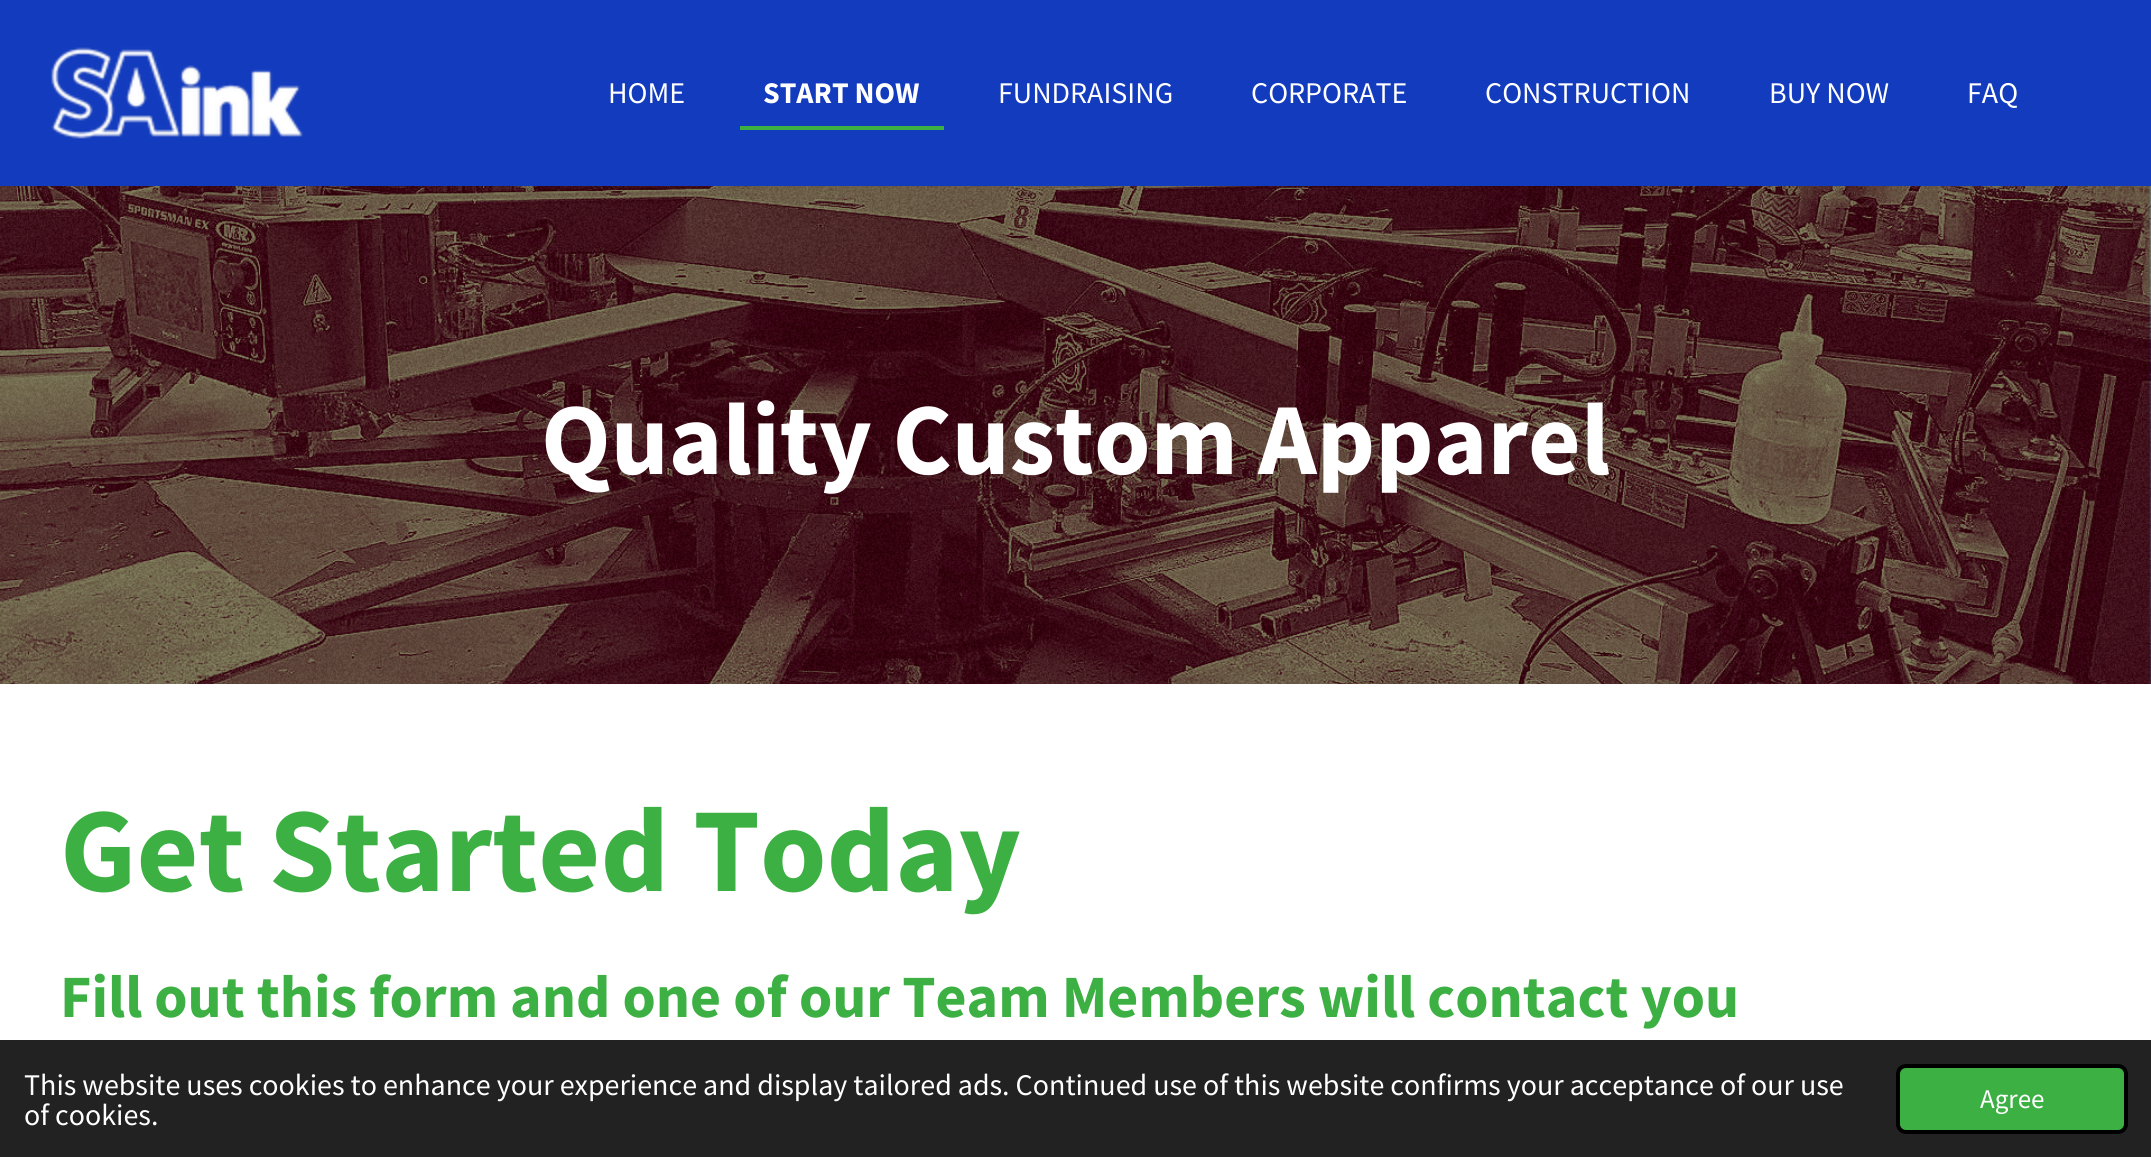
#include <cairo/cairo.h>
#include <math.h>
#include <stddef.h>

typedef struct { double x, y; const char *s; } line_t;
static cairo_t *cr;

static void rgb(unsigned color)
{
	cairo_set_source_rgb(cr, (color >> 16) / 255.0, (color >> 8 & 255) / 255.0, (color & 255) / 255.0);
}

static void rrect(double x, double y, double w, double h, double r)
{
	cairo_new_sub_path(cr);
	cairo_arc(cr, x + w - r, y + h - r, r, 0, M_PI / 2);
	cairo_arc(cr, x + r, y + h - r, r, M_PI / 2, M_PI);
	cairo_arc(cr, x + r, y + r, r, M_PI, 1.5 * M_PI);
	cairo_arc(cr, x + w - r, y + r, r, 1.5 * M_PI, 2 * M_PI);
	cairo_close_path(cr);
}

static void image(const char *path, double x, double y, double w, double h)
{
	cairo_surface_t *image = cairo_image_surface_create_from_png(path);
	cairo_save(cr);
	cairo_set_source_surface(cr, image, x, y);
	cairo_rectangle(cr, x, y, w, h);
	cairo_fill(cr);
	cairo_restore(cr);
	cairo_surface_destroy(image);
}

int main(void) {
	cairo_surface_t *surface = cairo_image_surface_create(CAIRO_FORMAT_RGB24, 2151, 1157);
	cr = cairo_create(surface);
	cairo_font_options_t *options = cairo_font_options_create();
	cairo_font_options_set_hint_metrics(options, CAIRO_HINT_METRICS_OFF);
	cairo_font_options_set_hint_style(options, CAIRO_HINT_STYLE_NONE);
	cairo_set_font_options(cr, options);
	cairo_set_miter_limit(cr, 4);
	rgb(0x133bbe);
	cairo_paint(cr);
	image("img/1.png", 51, 47, 252, 92);
	rgb(0x3cb043);
	cairo_rectangle(cr, 740, 126, 204, 4);
	cairo_fill(cr);
	image("img/2.png", 0, 186, 2151, 498);
	rgb(0xffffff);
	cairo_rectangle(cr, 0, 684, 2151, 356);
	cairo_fill(cr);
	rgb(0x222222);
	cairo_rectangle(cr, 0, 1040, 2151, 117);
	cairo_fill(cr);
	rgb(0x3cb043);
	rrect(1898, 1066, 228, 66, 8);
	cairo_fill_preserve(cr);
	rgb(0x000000);
	cairo_set_line_width(cr, 4);
	cairo_stroke(cr);
	cairo_select_font_face(cr, "Source Sans Pro", CAIRO_FONT_SLANT_NORMAL, CAIRO_FONT_WEIGHT_NORMAL);
	cairo_set_font_size(cr, 30);
	rgb(0xffffff);
	cairo_move_to(cr, 608, 103);
	cairo_show_text(cr, "HOME");
	cairo_select_font_face(cr, "Source Sans Pro", CAIRO_FONT_SLANT_NORMAL, CAIRO_FONT_WEIGHT_BOLD);
	cairo_move_to(cr, 763, 103);
	cairo_show_text(cr, "START NOW");
	cairo_select_font_face(cr, "Source Sans Pro", CAIRO_FONT_SLANT_NORMAL, CAIRO_FONT_WEIGHT_NORMAL);
	{
		static const line_t items[] = {
			{998, 103, "FUNDRAISING"},
			{1251, 103, "CORPORATE"},
			{1485, 103, "CONSTRUCTION"},
			{1769, 103, "BUY NOW"},
			{1967, 103, "FAQ"},
		};
		for (size_t i = 0; i < sizeof items / sizeof *items; i++) {
			cairo_move_to(cr, items[i].x, items[i].y);
			cairo_show_text(cr, items[i].s);
		}
	}
	cairo_select_font_face(cr, "Source Sans Pro", CAIRO_FONT_SLANT_NORMAL, CAIRO_FONT_WEIGHT_BOLD);
	cairo_set_font_size(cr, 102);
	cairo_move_to(cr, 541, 474);
	cairo_show_text(cr, "Quality Custom Apparel");
	cairo_set_font_size(cr, 120);
	rgb(0x3cb043);
	cairo_move_to(cr, 60, 891);
	cairo_show_text(cr, "Get Started Today");
	cairo_set_font_size(cr, 60);
	cairo_move_to(cr, 60, 1017);
	cairo_show_text(cr, "Fill out this form and one of our Team Members will contact you");
	cairo_select_font_face(cr, "Source Sans Pro", CAIRO_FONT_SLANT_NORMAL, CAIRO_FONT_WEIGHT_NORMAL);
	cairo_set_font_size(cr, 30);
	rgb(0xffffff);
	cairo_move_to(cr, 24, 1095);
	cairo_show_text(cr, "This website uses cookies to enhance your experience and display tailored ads. Continued use of this website confirms your acceptance of our use");
	cairo_move_to(cr, 24, 1125);
	cairo_show_text(cr, "of cookies.");
	cairo_set_font_size(cr, 27);
	cairo_move_to(cr, 1980, 1108);
	cairo_show_text(cr, "Agree");
	cairo_surface_write_to_png(surface, "page.png");
	cairo_font_options_destroy(options);
	cairo_destroy(cr);
	cairo_surface_destroy(surface);
	return 0;
}
